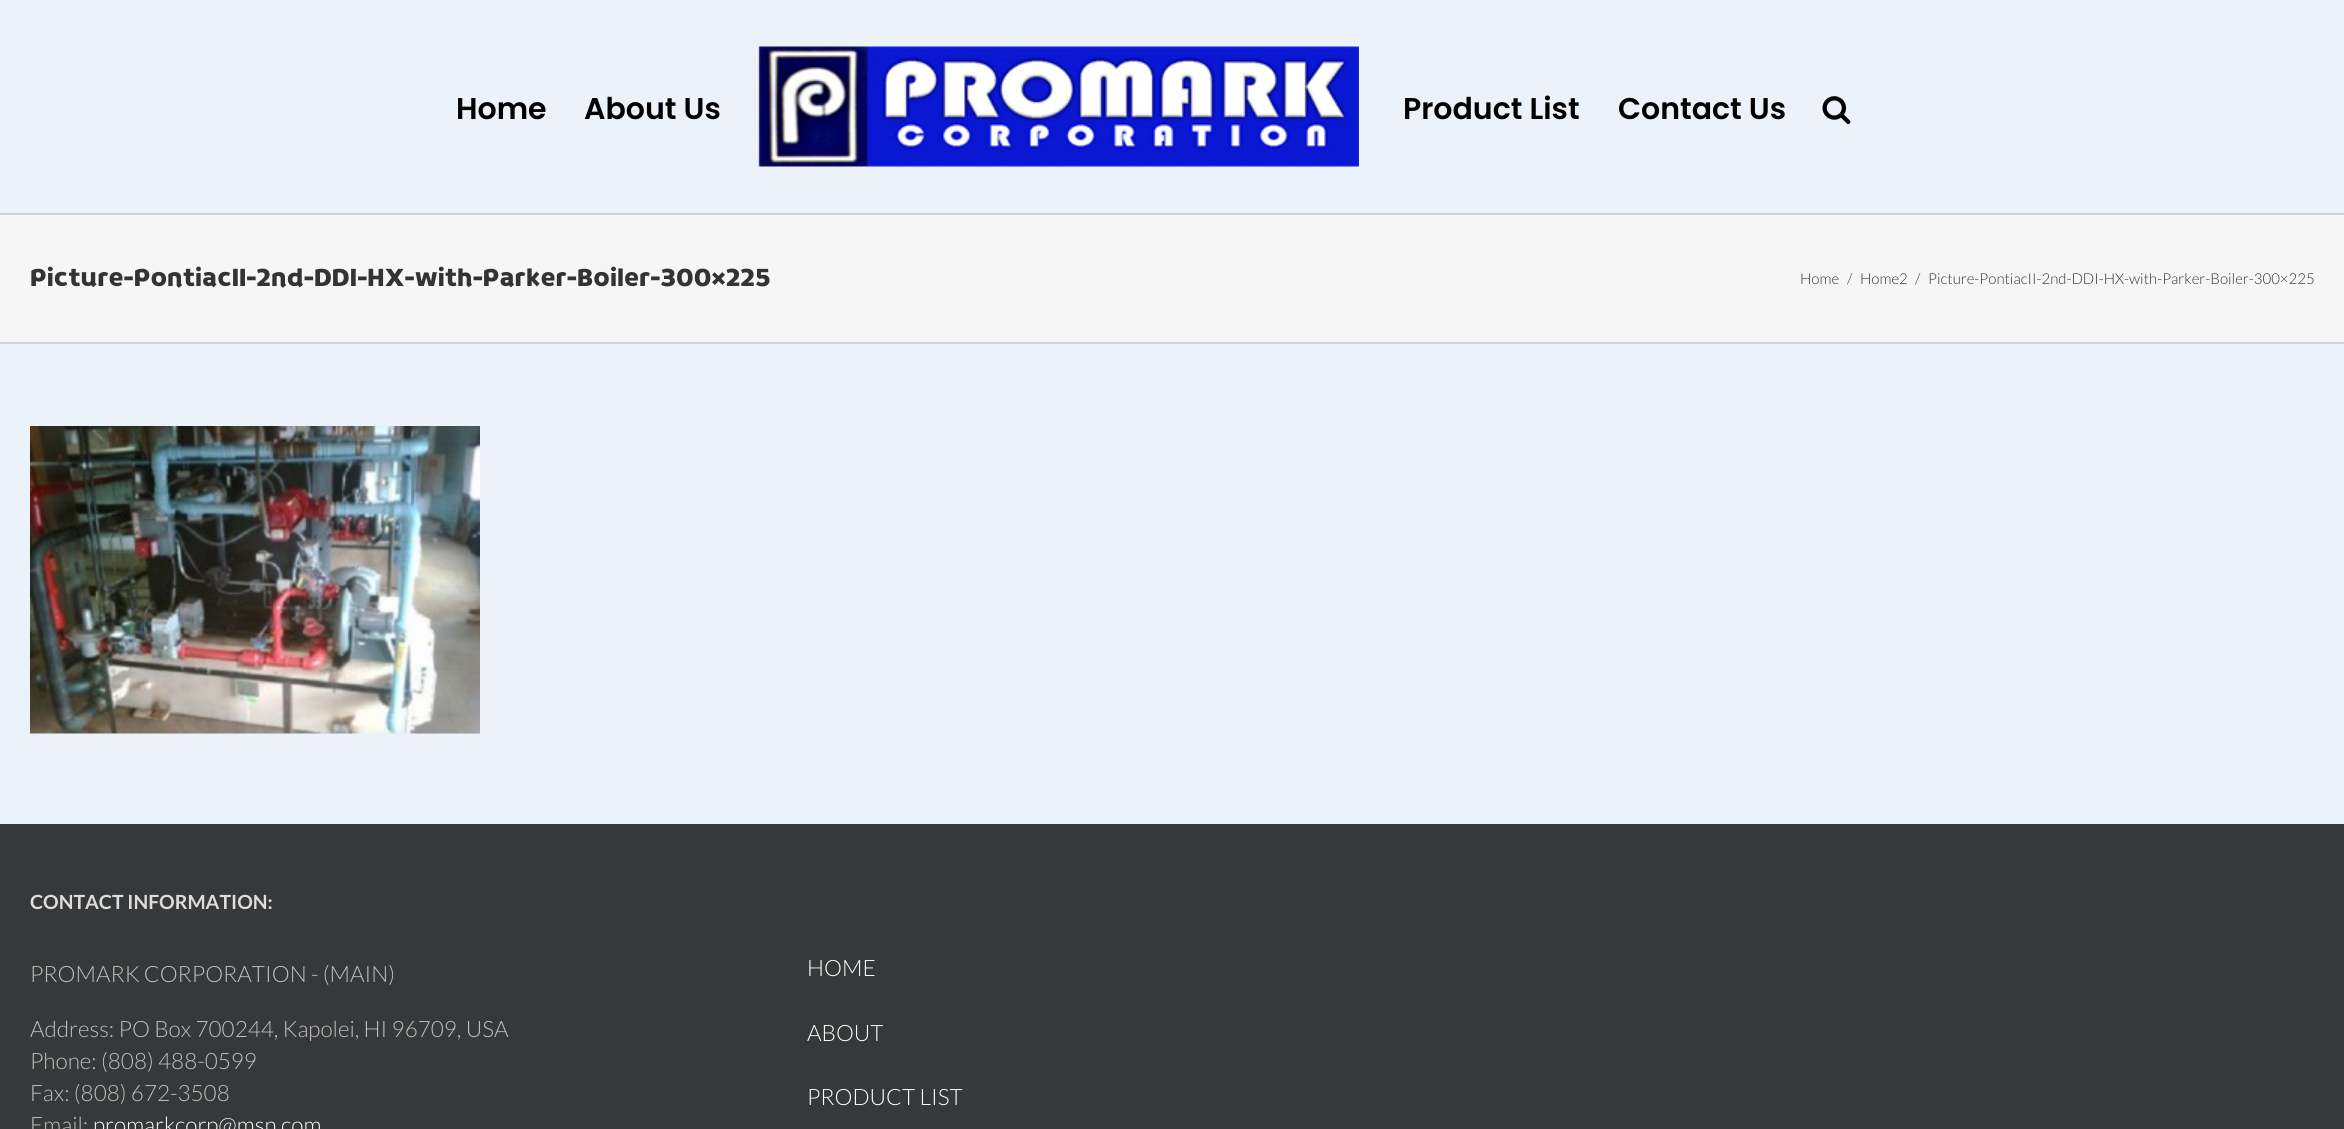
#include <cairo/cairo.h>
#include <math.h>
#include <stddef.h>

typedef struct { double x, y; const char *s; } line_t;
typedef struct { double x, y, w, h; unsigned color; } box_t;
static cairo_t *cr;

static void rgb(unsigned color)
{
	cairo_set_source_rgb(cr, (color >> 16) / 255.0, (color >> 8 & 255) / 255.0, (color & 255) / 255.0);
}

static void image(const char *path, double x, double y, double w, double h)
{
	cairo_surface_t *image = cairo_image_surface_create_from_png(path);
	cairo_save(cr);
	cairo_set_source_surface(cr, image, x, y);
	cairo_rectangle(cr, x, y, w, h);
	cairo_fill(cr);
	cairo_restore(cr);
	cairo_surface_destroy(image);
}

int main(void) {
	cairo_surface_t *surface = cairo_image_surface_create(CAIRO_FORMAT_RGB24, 2344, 1129);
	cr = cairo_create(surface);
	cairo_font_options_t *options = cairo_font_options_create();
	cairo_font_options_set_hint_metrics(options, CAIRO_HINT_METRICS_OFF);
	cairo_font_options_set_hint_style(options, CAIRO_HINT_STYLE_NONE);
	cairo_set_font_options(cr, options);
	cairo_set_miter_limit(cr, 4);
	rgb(0xf6f6f6);
	cairo_paint(cr);
	rgb(0xebf2fa);
	cairo_rectangle(cr, 0, 0, 2344, 213);
	cairo_fill(cr);
	image("img/1.png", 758, 46, 601, 121);
	image("img/2.png", 1822, 96, 29, 28);
	{
		static const box_t items[] = {
			{0, 213, 2344, 2, 0xd2d3d4},
			{0, 342, 2344, 2, 0xd2d3d4},
			{0, 344, 2344, 480, 0xebf2fa},
		};
		for (size_t i = 0; i < sizeof items / sizeof *items; i++) {
			rgb(items[i].color);
			cairo_rectangle(cr, items[i].x, items[i].y, items[i].w, items[i].h);
			cairo_fill(cr);
		}
	}
	image("img/3.png", 30, 426, 450, 308);
	rgb(0x363839);
	cairo_rectangle(cr, 0, 824, 2344, 305);
	cairo_fill(cr);
	cairo_select_font_face(cr, "Poppins SemiBold", CAIRO_FONT_SLANT_NORMAL, CAIRO_FONT_WEIGHT_NORMAL);
	cairo_set_font_size(cr, 30);
	rgb(0x000000);
	{
		static const line_t items[] = {
			{456, 119, "Home"},
			{584, 119, "About Us"},
			{1403, 119, "Product List"},
			{1618, 119, "Contact Us"},
		};
		for (size_t i = 0; i < sizeof items / sizeof *items; i++) {
			cairo_move_to(cr, items[i].x, items[i].y);
			cairo_show_text(cr, items[i].s);
		}
	}
	cairo_select_font_face(cr, "Braah One", CAIRO_FONT_SLANT_NORMAL, CAIRO_FONT_WEIGHT_NORMAL);
	cairo_set_font_size(cr, 27);
	rgb(0x333333);
	cairo_move_to(cr, 30, 286);
	cairo_show_text(cr, "Picture-PontiacII-2nd-DDI-HX-with-Parker-Boiler-300×225");
	cairo_select_font_face(cr, "Lato Light", CAIRO_FONT_SLANT_NORMAL, CAIRO_FONT_WEIGHT_NORMAL);
	cairo_set_font_size(cr, 15);
	{
		static const line_t items[] = {
			{1800, 284, "Home"},
			{1847, 284, "/"},
			{1860, 284, "Home2"},
			{1915, 284, "/"},
			{1928, 284, "Picture-PontiacII-2nd-DDI-HX-with-Parker-Boiler-300×225"},
		};
		for (size_t i = 0; i < sizeof items / sizeof *items; i++) {
			cairo_move_to(cr, items[i].x, items[i].y);
			cairo_show_text(cr, items[i].s);
		}
	}
	cairo_select_font_face(cr, "Lato", CAIRO_FONT_SLANT_NORMAL, CAIRO_FONT_WEIGHT_BOLD);
	cairo_set_font_size(cr, 19.5);
	rgb(0xdddddd);
	cairo_move_to(cr, 30, 909);
	cairo_show_text(cr, "CONTACT INFORMATION:");
	cairo_select_font_face(cr, "Lato Light", CAIRO_FONT_SLANT_NORMAL, CAIRO_FONT_WEIGHT_NORMAL);
	cairo_set_font_size(cr, 22.5);
	rgb(0xbfbfbf);
	{
		static const line_t items[] = {
			{30, 982, "PROMARK CORPORATION - (MAIN)"},
			{30, 1037, "Address: PO Box 700244, Kapolei, HI 96709, USA"},
			{30, 1069, "Phone: (808) 488-0599"},
			{30, 1101, "Fax: (808) 672-3508"},
			{30, 1133, "Email:"},
		};
		for (size_t i = 0; i < sizeof items / sizeof *items; i++) {
			cairo_move_to(cr, items[i].x, items[i].y);
			cairo_show_text(cr, items[i].s);
		}
	}
	rgb(0xffffff);
	{
		static const line_t items[] = {
			{93, 1133, "promarkcorp@msn.com"},
			{807, 976, "HOME"},
			{807, 1041, "ABOUT"},
			{807, 1105, "PRODUCT LIST"},
		};
		for (size_t i = 0; i < sizeof items / sizeof *items; i++) {
			cairo_move_to(cr, items[i].x, items[i].y);
			cairo_show_text(cr, items[i].s);
		}
	}
	cairo_surface_write_to_png(surface, "page.png");
	cairo_font_options_destroy(options);
	cairo_destroy(cr);
	cairo_surface_destroy(surface);
	return 0;
}
